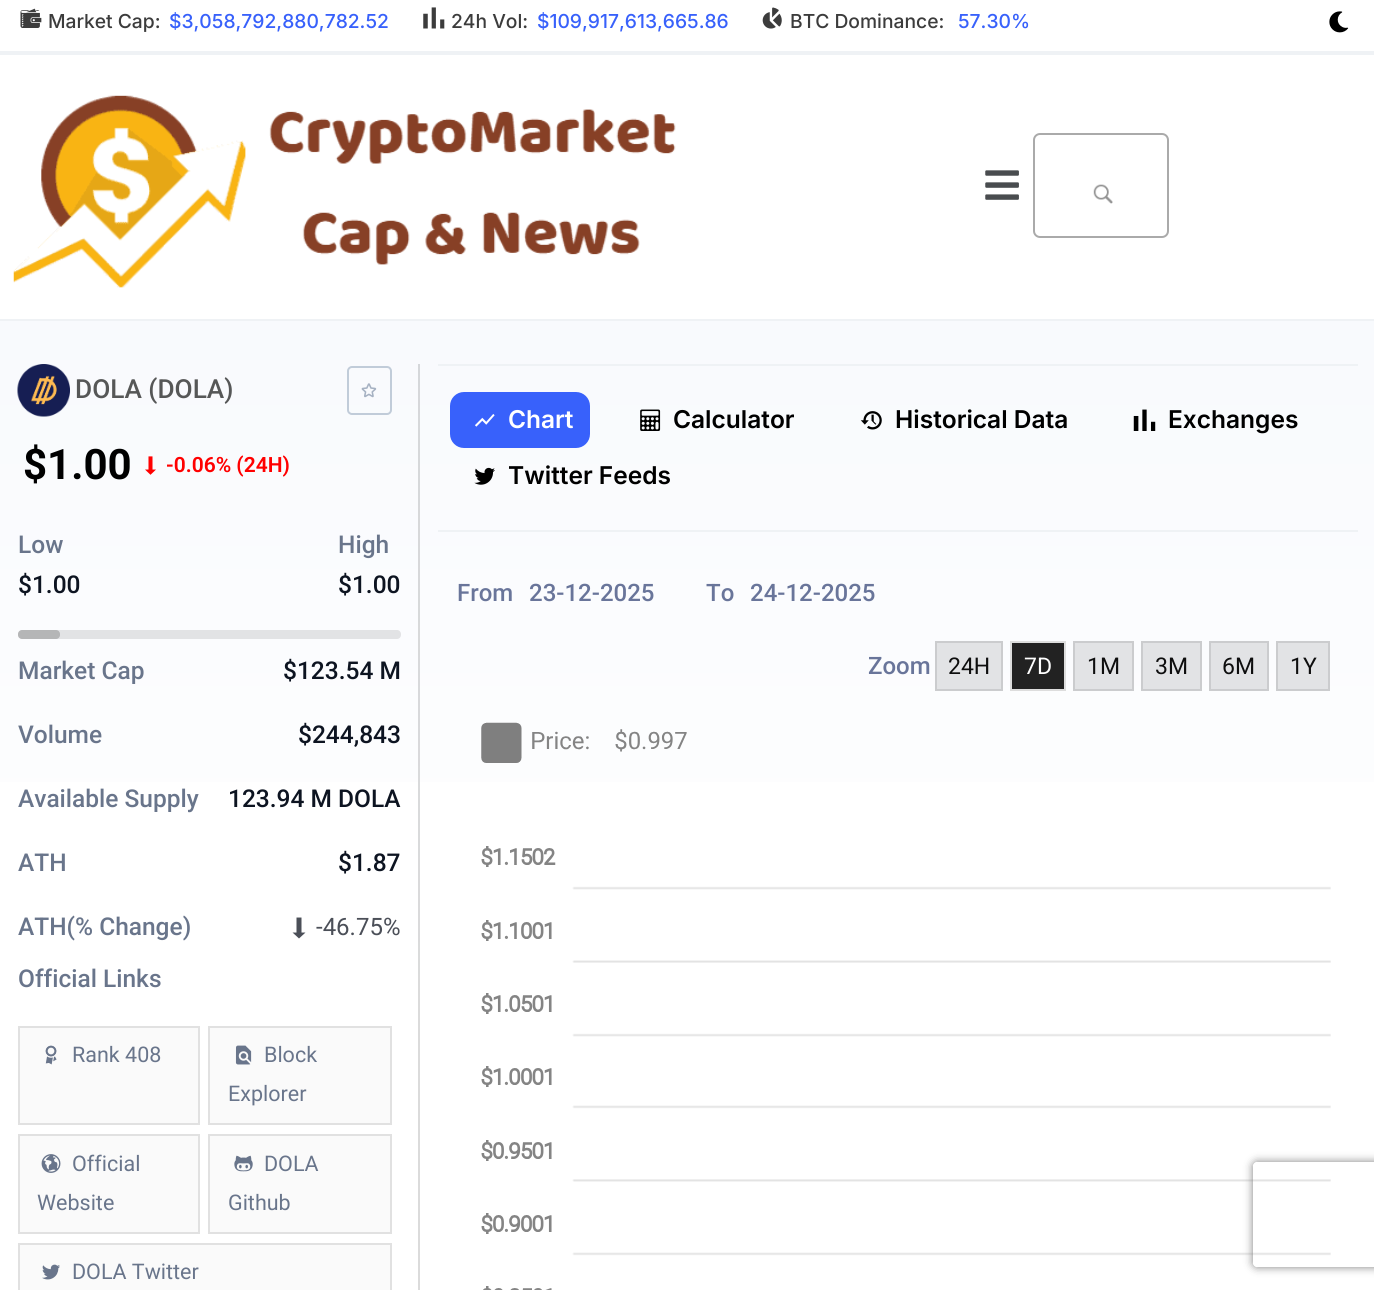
#include <cairo/cairo.h>
#include <math.h>
#include <stddef.h>

typedef struct { double x, y; const char *s; } line_t;
static cairo_t *cr;

static void rgb(unsigned color)
{
	cairo_set_source_rgb(cr, (color >> 16) / 255.0, (color >> 8 & 255) / 255.0, (color & 255) / 255.0);
}

static void rrect(double x, double y, double w, double h, double r)
{
	cairo_new_sub_path(cr);
	cairo_arc(cr, x + w - r, y + h - r, r, 0, M_PI / 2);
	cairo_arc(cr, x + r, y + h - r, r, M_PI / 2, M_PI);
	cairo_arc(cr, x + r, y + r, r, M_PI, 1.5 * M_PI);
	cairo_arc(cr, x + w - r, y + r, r, 1.5 * M_PI, 2 * M_PI);
	cairo_close_path(cr);
}

static void soft_shadow(double x, double y, double w, double h, double r, double blur, double alpha)
{
	cairo_push_group_with_content(cr, CAIRO_CONTENT_ALPHA);
	cairo_set_operator(cr, CAIRO_OPERATOR_SOURCE);
	for (int i = 15; i >= -15 && fmin(w, h) + blur * i / 3 > 0; i -= 2) {
		double e = blur * i / 6;
		cairo_set_source_rgba(cr, 0, 0, 0, alpha * erfc((i - 1) / 8.5) / 2);
		rrect(x - e, y - e, w + 2 * e, h + 2 * e, fmax(0, fmin(r + e + blur * .6, fmin(w, h) / 2 + e)));
		cairo_fill(cr);
	}
	cairo_pattern_t *soft = cairo_pop_group(cr);
	cairo_mask(cr, soft);
	cairo_pattern_destroy(soft);
}

static void image(const char *path, double x, double y, double w, double h)
{
	cairo_surface_t *image = cairo_image_surface_create_from_png(path);
	cairo_save(cr);
	cairo_set_source_surface(cr, image, x, y);
	cairo_rectangle(cr, x, y, w, h);
	cairo_fill(cr);
	cairo_restore(cr);
	cairo_surface_destroy(image);
}

int main(void) {
	cairo_surface_t *surface = cairo_image_surface_create(CAIRO_FORMAT_RGB24, 1374, 1290);
	cr = cairo_create(surface);
	cairo_font_options_t *options = cairo_font_options_create();
	cairo_font_options_set_hint_metrics(options, CAIRO_HINT_METRICS_OFF);
	cairo_font_options_set_hint_style(options, CAIRO_HINT_STYLE_NONE);
	cairo_set_font_options(cr, options);
	cairo_set_miter_limit(cr, 4);
	cairo_pattern_t *gradient;
	rgb(0xffffff);
	cairo_paint(cr);
	rgb(0xeff2f5);
	cairo_rectangle(cr, 0, 51, 1374, 4);
	cairo_fill(cr);
	image("img/1.png", 20, 8, 22, 20);
	image("img/2.png", 423, 7, 22, 22);
	image("img/3.png", 762, 7, 20, 22);
	image("img/4.png", 1329, 11, 20, 22);
	cairo_rectangle(cr, 0, 319, 1374, 2);
	cairo_fill(cr);
	image("img/5.png", 13, 95, 663, 193);
	image("img/6.png", 985, 170, 34, 30);
	rrect(1034, 134, 134, 103, 6);
	rgb(0xaaaaaa);
	cairo_stroke(cr);
	image("img/7.png", 1093, 184, 20, 20);
	gradient = cairo_pattern_create_linear(688, 320, 688, 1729);
	cairo_pattern_add_color_stop_rgba(gradient, 0, 0.973, 0.98, 0.992, 1);
	cairo_pattern_add_color_stop_rgba(gradient, 0.51, 1, 1, 1, 1);
	cairo_set_source(cr, gradient);
	cairo_pattern_destroy(gradient);
	cairo_rectangle(cr, 0, 321, 1374, 461);
	cairo_fill(cr);
	gradient = cairo_pattern_create_linear(688, 320, 688, 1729);
	cairo_pattern_add_color_stop_rgba(gradient, 0, 0.835, 0.843, 0.855, 1);
	cairo_pattern_add_color_stop_rgba(gradient, 0.51, 0.859, 0.859, 0.859, 1);
	cairo_set_source(cr, gradient);
	cairo_pattern_destroy(gradient);
	cairo_rectangle(cr, 418, 364, 2, 926);
	cairo_fill(cr);
	image("img/8.png", 17, 364, 53, 53);
	rrect(348, 367, 43, 47, 4);
	rgb(0xc1ccd9);
	cairo_stroke(cr);
	image("img/9.png", 361, 383, 16, 15);
	image("img/10.png", 145, 456, 11, 19);
	rgb(0xe2e3e5);
	rrect(18, 630, 383, 9, 4);
	cairo_fill(cr);
	cairo_set_source_rgba(cr, 0, 0, 0, 0.2);
	rrect(18, 630, 42, 9, 4);
	cairo_fill(cr);
	rgb(0x4b4f58);
	cairo_new_path(cr);
	cairo_move_to(cr, 299, 938.5);
	cairo_line_to(cr, 292.5, 932.5);
	cairo_line_to(cr, 296.5, 932.5);
	cairo_line_to(cr, 296.5, 917.5);
	cairo_line_to(cr, 301.5, 917.5);
	cairo_line_to(cr, 301.5, 932.5);
	cairo_line_to(cr, 305.5, 932.5);
	cairo_close_path(cr);
	cairo_fill(cr);
	rgb(0xfafafa);
	cairo_rectangle(cr, 19, 1027, 180, 97);
	cairo_fill_preserve(cr);
	rgb(0xe1e1e1);
	cairo_stroke(cr);
	image("img/11.png", 45, 1045, 12, 20);
	rgb(0xfafafa);
	cairo_rectangle(cr, 209, 1027, 182, 97);
	cairo_fill_preserve(cr);
	rgb(0xe1e1e1);
	cairo_stroke(cr);
	image("img/12.png", 235, 1045, 17, 20);
	rgb(0xfafafa);
	cairo_rectangle(cr, 19, 1135, 180, 98);
	cairo_fill_preserve(cr);
	rgb(0xe1e1e1);
	cairo_stroke(cr);
	image("img/13.png", 41, 1154, 20, 19);
	rgb(0xfafafa);
	cairo_rectangle(cr, 209, 1135, 182, 98);
	cairo_fill_preserve(cr);
	rgb(0xe1e1e1);
	cairo_stroke(cr);
	image("img/14.png", 234, 1155, 19, 17);
	rgb(0xfafafa);
	cairo_rectangle(cr, 19, 1244, 372, 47);
	cairo_fill_preserve(cr);
	rgb(0xe1e1e1);
	cairo_stroke(cr);
	image("img/15.png", 42, 1264, 18, 16);
	rgb(0xeff2f5);
	cairo_rectangle(cr, 438, 364, 920, 2);
	cairo_fill(cr);
	cairo_rectangle(cr, 438, 530, 920, 2);
	cairo_fill(cr);
	rgb(0x3861fb);
	rrect(450, 392, 140, 56, 14);
	cairo_fill(cr);
	image("img/16.png", 475, 414, 20, 13);
	image("img/17.png", 640, 409, 21, 22);
	image("img/18.png", 860, 411, 22, 19);
	image("img/19.png", 1133, 409, 23, 22);
	image("img/20.png", 474, 467, 21, 18);
	rgb(0xe2e3e5);
	cairo_rectangle(cr, 936, 642, 66, 48);
	cairo_fill_preserve(cr);
	rgb(0xcbccce);
	cairo_stroke(cr);
	rgb(0x222222);
	cairo_rectangle(cr, 1011, 642, 54, 48);
	cairo_fill_preserve(cr);
	rgb(0xdddddd);
	cairo_stroke(cr);
	rgb(0xe2e3e5);
	cairo_rectangle(cr, 1074, 642, 59, 48);
	cairo_fill_preserve(cr);
	rgb(0xcbccce);
	cairo_stroke(cr);
	rgb(0xe2e3e5);
	cairo_rectangle(cr, 1142, 642, 59, 48);
	cairo_fill_preserve(cr);
	rgb(0xcbccce);
	cairo_stroke(cr);
	rgb(0xe2e3e5);
	cairo_rectangle(cr, 1210, 642, 58, 48);
	cairo_fill_preserve(cr);
	rgb(0xcbccce);
	cairo_stroke(cr);
	rgb(0xe2e3e5);
	cairo_rectangle(cr, 1277, 642, 52, 48);
	cairo_fill_preserve(cr);
	rgb(0xcbccce);
	cairo_stroke(cr);
	image("img/21.png", 481, 722, 850, 568);
	cairo_save(cr);
	cairo_set_fill_rule(cr, CAIRO_FILL_RULE_EVEN_ODD);
	cairo_new_path(cr);
	cairo_move_to(cr, 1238, 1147);
	cairo_line_to(cr, 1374, 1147);
	cairo_line_to(cr, 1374, 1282);
	cairo_line_to(cr, 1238, 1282);
	cairo_close_path(cr);
	cairo_move_to(cr, 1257, 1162);
	cairo_line_to(cr, 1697, 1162);
	cairo_curve_to(cr, 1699, 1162, 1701, 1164, 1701, 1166);
	cairo_line_to(cr, 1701, 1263);
	cairo_curve_to(cr, 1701, 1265, 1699, 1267, 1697, 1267);
	cairo_line_to(cr, 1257, 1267);
	cairo_curve_to(cr, 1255, 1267, 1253, 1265, 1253, 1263);
	cairo_line_to(cr, 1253, 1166);
	cairo_curve_to(cr, 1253, 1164, 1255, 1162, 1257, 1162);
	cairo_close_path(cr);
	cairo_clip(cr);
	rgb(0x808080);
	soft_shadow(1253, 1162, 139, 105, 4, 4.5, 1);
	cairo_restore(cr);
	cairo_select_font_face(cr, "Inter Medium", CAIRO_FONT_SLANT_NORMAL, CAIRO_FONT_WEIGHT_NORMAL);
	cairo_set_font_size(cr, 19.25);
	rgb(0x3c3c3c);
	cairo_move_to(cr, 48, 28);
	cairo_show_text(cr, "Market Cap:");
	rgb(0x3861fb);
	cairo_move_to(cr, 169, 28);
	cairo_show_text(cr, "$3,058,792,880,782.52");
	rgb(0x3c3c3c);
	cairo_move_to(cr, 451, 28);
	cairo_show_text(cr, "24h Vol:");
	rgb(0x3861fb);
	cairo_move_to(cr, 537, 28);
	cairo_show_text(cr, "$109,917,613,665.86");
	rgb(0x3c3c3c);
	cairo_move_to(cr, 790, 28);
	cairo_show_text(cr, "BTC Dominance:");
	rgb(0x3861fb);
	cairo_move_to(cr, 958, 28);
	cairo_show_text(cr, "57.30%");
	cairo_select_font_face(cr, "Roboto Medium", CAIRO_FONT_SLANT_NORMAL, CAIRO_FONT_WEIGHT_NORMAL);
	cairo_set_font_size(cr, 26.25);
	rgb(0x565757);
	cairo_move_to(cr, 75, 398);
	cairo_show_text(cr, "DOLA (DOLA)");
	cairo_select_font_face(cr, "Roboto", CAIRO_FONT_SLANT_NORMAL, CAIRO_FONT_WEIGHT_BOLD);
	cairo_set_font_size(cr, 42);
	rgb(0x000000);
	cairo_move_to(cr, 23, 479);
	cairo_show_text(cr, "$1.00");
	cairo_select_font_face(cr, "Roboto SemiBold", CAIRO_FONT_SLANT_NORMAL, CAIRO_FONT_WEIGHT_NORMAL);
	cairo_set_font_size(cr, 21);
	rgb(0xff0000);
	cairo_move_to(cr, 166, 472);
	cairo_show_text(cr, "-0.06% (24H)");
	cairo_select_font_face(cr, "Roboto Medium", CAIRO_FONT_SLANT_NORMAL, CAIRO_FONT_WEIGHT_NORMAL);
	cairo_set_font_size(cr, 24.5);
	rgb(0x69758b);
	cairo_move_to(cr, 18, 553);
	cairo_show_text(cr, "Low");
	rgb(0x0d1421);
	cairo_move_to(cr, 18, 593);
	cairo_show_text(cr, "$1.00");
	rgb(0x69758b);
	cairo_move_to(cr, 338, 553);
	cairo_show_text(cr, "High");
	rgb(0x0d1421);
	cairo_move_to(cr, 338, 593);
	cairo_show_text(cr, "$1.00");
	rgb(0x69758b);
	cairo_move_to(cr, 18, 679);
	cairo_show_text(cr, "Market Cap");
	rgb(0x0d1421);
	cairo_move_to(cr, 283, 679);
	cairo_show_text(cr, "$123.54 M");
	rgb(0x69758b);
	cairo_move_to(cr, 18, 743);
	cairo_show_text(cr, "Volume");
	rgb(0x0d1421);
	cairo_move_to(cr, 298, 743);
	cairo_show_text(cr, "$244,843");
	rgb(0x69758b);
	cairo_move_to(cr, 18, 807);
	cairo_show_text(cr, "Available Supply");
	rgb(0x0d1421);
	cairo_move_to(cr, 228, 807);
	cairo_show_text(cr, "123.94 M DOLA");
	rgb(0x69758b);
	cairo_move_to(cr, 18, 871);
	cairo_show_text(cr, "ATH");
	rgb(0x0d1421);
	cairo_move_to(cr, 338, 871);
	cairo_show_text(cr, "$1.87");
	rgb(0x69758b);
	cairo_move_to(cr, 18, 935);
	cairo_show_text(cr, "ATH(% Change)");
	cairo_select_font_face(cr, "Roboto", CAIRO_FONT_SLANT_NORMAL, CAIRO_FONT_WEIGHT_NORMAL);
	cairo_set_font_size(cr, 24);
	rgb(0x4b4f58);
	cairo_move_to(cr, 316, 935);
	cairo_show_text(cr, "-46.75%");
	cairo_select_font_face(cr, "Roboto Medium", CAIRO_FONT_SLANT_NORMAL, CAIRO_FONT_WEIGHT_NORMAL);
	cairo_set_font_size(cr, 24.5);
	rgb(0x69758b);
	cairo_move_to(cr, 18, 987);
	cairo_show_text(cr, "Official Links");
	cairo_select_font_face(cr, "Roboto", CAIRO_FONT_SLANT_NORMAL, CAIRO_FONT_WEIGHT_NORMAL);
	cairo_set_font_size(cr, 21.5);
	{
		static const line_t items[] = {
			{72, 1062, "Rank 408"},
			{264, 1062, "Block"},
			{228, 1101, "Explorer"},
			{72, 1171, "Official"},
			{37, 1210, "Website"},
			{264, 1171, "DOLA"},
			{228, 1210, "Github"},
			{72, 1279, "DOLA Twitter"},
		};
		for (size_t i = 0; i < sizeof items / sizeof *items; i++) {
			cairo_move_to(cr, items[i].x, items[i].y);
			cairo_show_text(cr, items[i].s);
		}
	}
	cairo_select_font_face(cr, "Inter SemiBold", CAIRO_FONT_SLANT_NORMAL, CAIRO_FONT_WEIGHT_NORMAL);
	cairo_set_font_size(cr, 24.5);
	rgb(0xffffff);
	cairo_move_to(cr, 508, 428);
	cairo_show_text(cr, "Chart");
	rgb(0x000000);
	{
		static const line_t items[] = {
			{673, 428, "Calculator"},
			{895, 428, "Historical Data"},
			{1168, 428, "Exchanges"},
			{508, 484, "Twitter Feeds"},
		};
		for (size_t i = 0; i < sizeof items / sizeof *items; i++) {
			cairo_move_to(cr, items[i].x, items[i].y);
			cairo_show_text(cr, items[i].s);
		}
	}
	cairo_select_font_face(cr, "Roboto Medium", CAIRO_FONT_SLANT_NORMAL, CAIRO_FONT_WEIGHT_NORMAL);
	cairo_set_font_size(cr, 24);
	rgb(0x69759a);
	{
		static const line_t items[] = {
			{457, 601, "From"},
			{529, 601, "23-12-2025"},
			{706, 601, "To"},
			{750, 601, "24-12-2025"},
			{868, 674, "Zoom"},
		};
		for (size_t i = 0; i < sizeof items / sizeof *items; i++) {
			cairo_move_to(cr, items[i].x, items[i].y);
			cairo_show_text(cr, items[i].s);
		}
	}
	cairo_select_font_face(cr, "Roboto", CAIRO_FONT_SLANT_NORMAL, CAIRO_FONT_WEIGHT_NORMAL);
	cairo_set_font_size(cr, 23);
	rgb(0x0e0e0e);
	cairo_move_to(cr, 948, 674);
	cairo_show_text(cr, "24H");
	rgb(0xffffff);
	cairo_move_to(cr, 1024, 674);
	cairo_show_text(cr, "7D");
	rgb(0x0e0e0e);
	{
		static const line_t items[] = {
			{1087, 674, "1M"},
			{1155, 674, "3M"},
			{1222, 674, "6M"},
			{1290, 674, "1Y"},
		};
		for (size_t i = 0; i < sizeof items / sizeof *items; i++) {
			cairo_move_to(cr, items[i].x, items[i].y);
			cairo_show_text(cr, items[i].s);
		}
	}
	cairo_surface_write_to_png(surface, "page.png");
	cairo_font_options_destroy(options);
	cairo_destroy(cr);
	cairo_surface_destroy(surface);
	return 0;
}
